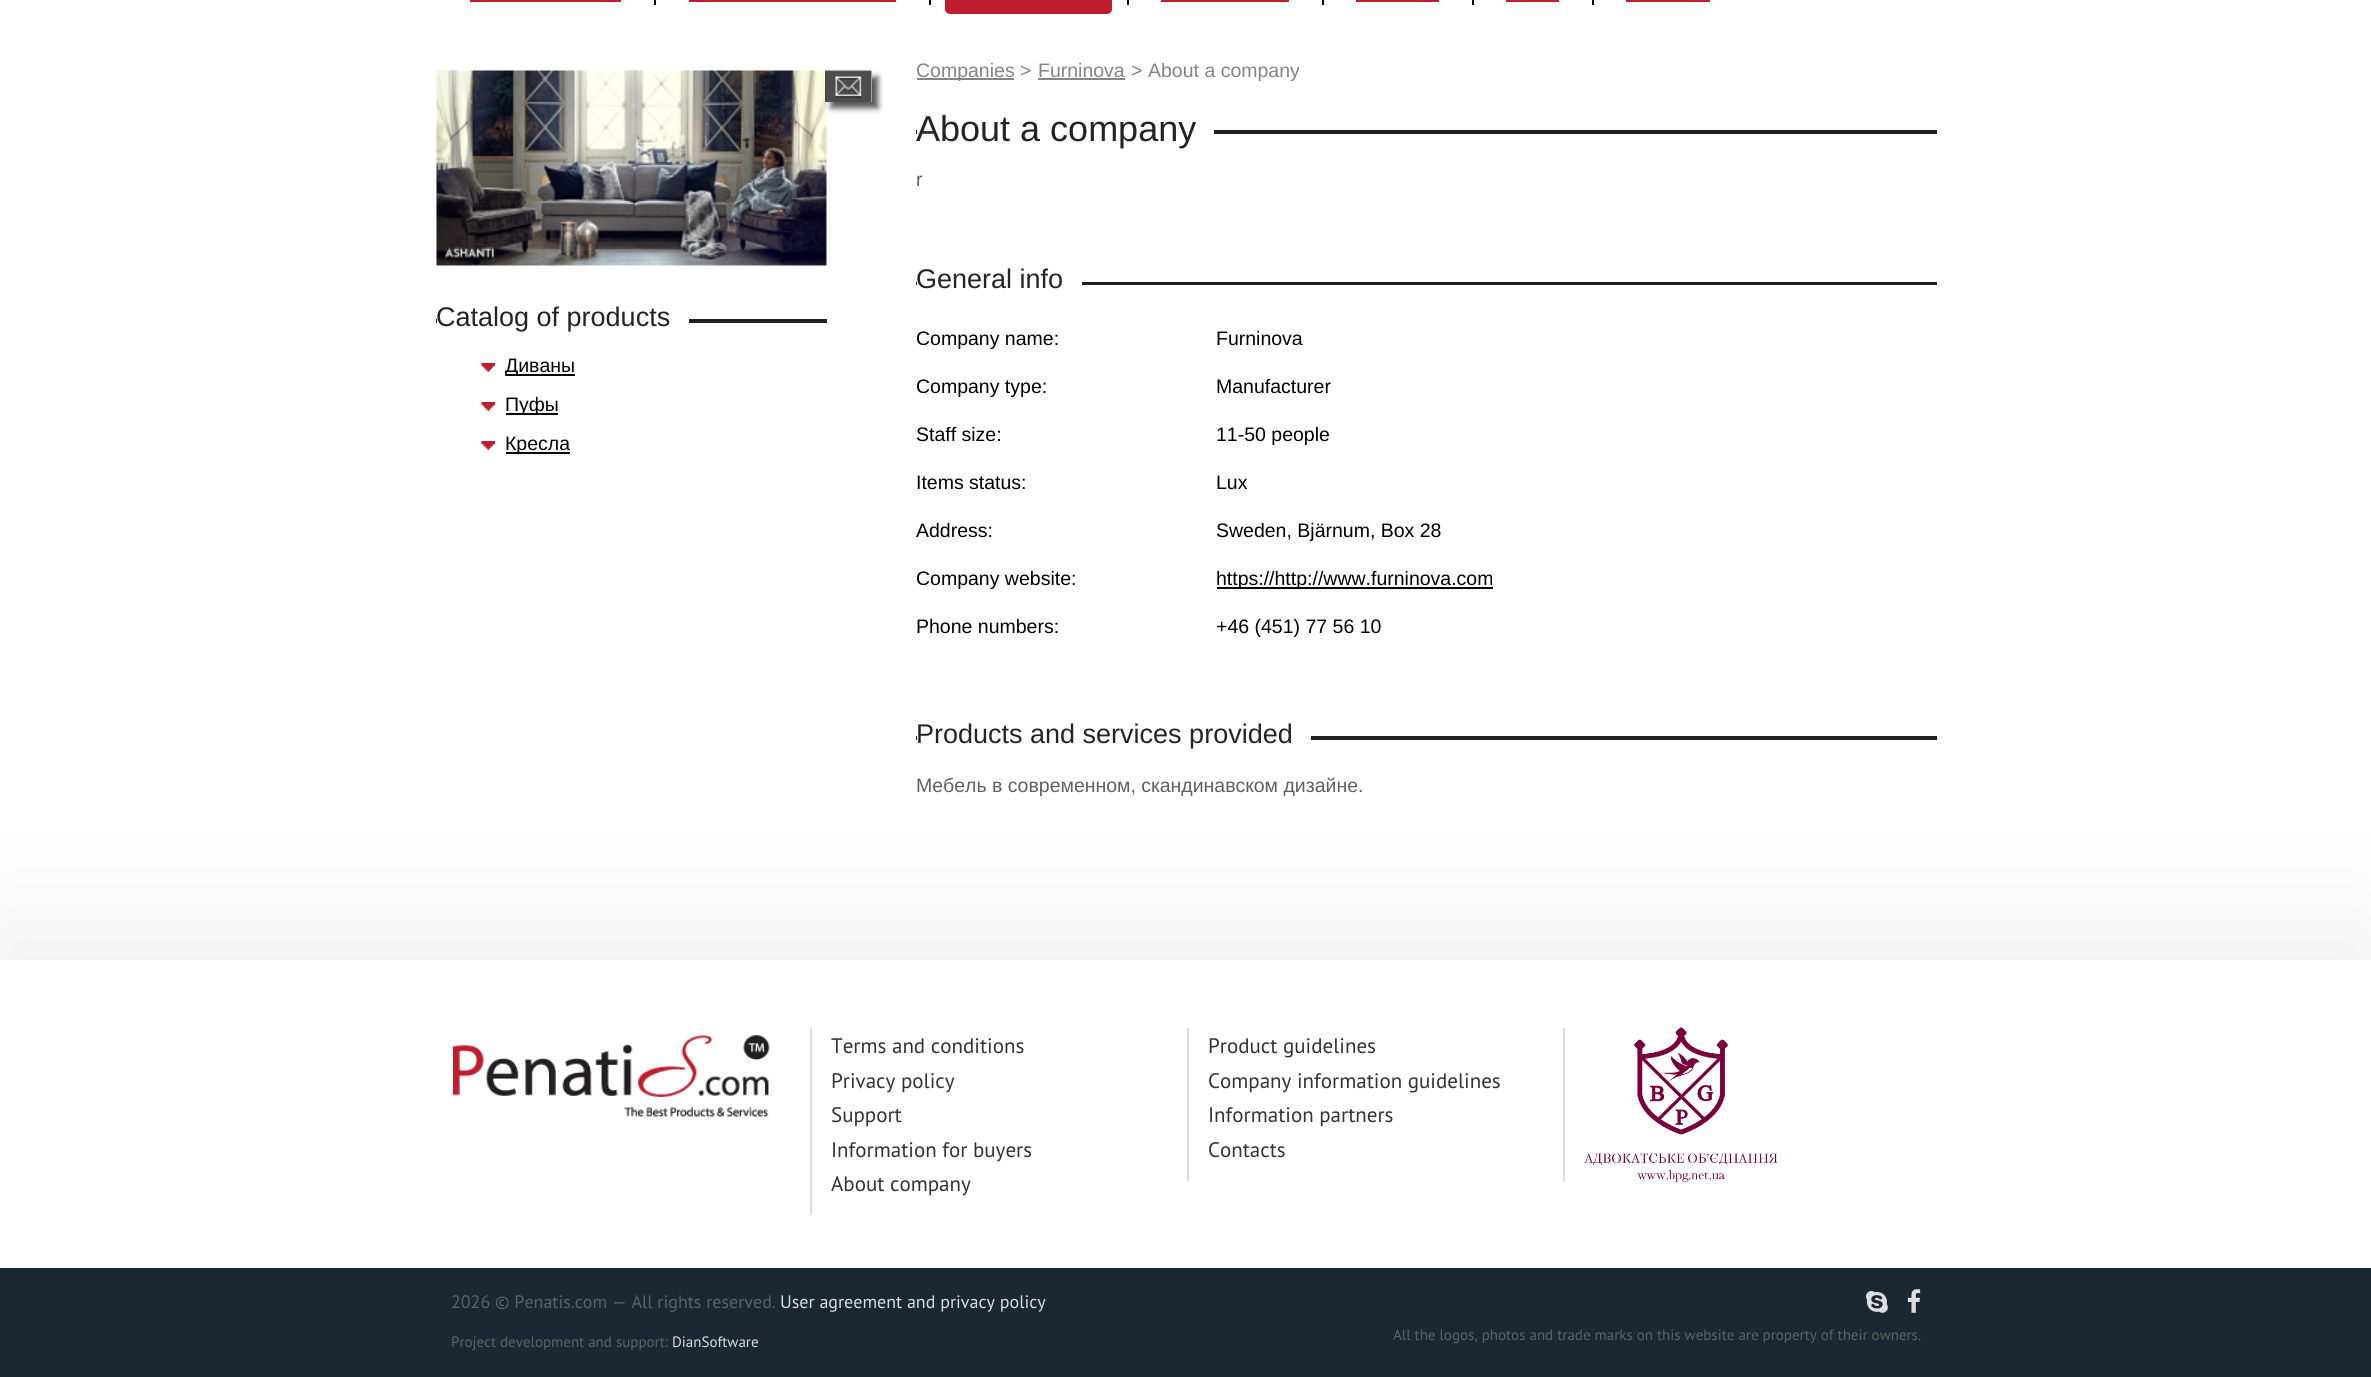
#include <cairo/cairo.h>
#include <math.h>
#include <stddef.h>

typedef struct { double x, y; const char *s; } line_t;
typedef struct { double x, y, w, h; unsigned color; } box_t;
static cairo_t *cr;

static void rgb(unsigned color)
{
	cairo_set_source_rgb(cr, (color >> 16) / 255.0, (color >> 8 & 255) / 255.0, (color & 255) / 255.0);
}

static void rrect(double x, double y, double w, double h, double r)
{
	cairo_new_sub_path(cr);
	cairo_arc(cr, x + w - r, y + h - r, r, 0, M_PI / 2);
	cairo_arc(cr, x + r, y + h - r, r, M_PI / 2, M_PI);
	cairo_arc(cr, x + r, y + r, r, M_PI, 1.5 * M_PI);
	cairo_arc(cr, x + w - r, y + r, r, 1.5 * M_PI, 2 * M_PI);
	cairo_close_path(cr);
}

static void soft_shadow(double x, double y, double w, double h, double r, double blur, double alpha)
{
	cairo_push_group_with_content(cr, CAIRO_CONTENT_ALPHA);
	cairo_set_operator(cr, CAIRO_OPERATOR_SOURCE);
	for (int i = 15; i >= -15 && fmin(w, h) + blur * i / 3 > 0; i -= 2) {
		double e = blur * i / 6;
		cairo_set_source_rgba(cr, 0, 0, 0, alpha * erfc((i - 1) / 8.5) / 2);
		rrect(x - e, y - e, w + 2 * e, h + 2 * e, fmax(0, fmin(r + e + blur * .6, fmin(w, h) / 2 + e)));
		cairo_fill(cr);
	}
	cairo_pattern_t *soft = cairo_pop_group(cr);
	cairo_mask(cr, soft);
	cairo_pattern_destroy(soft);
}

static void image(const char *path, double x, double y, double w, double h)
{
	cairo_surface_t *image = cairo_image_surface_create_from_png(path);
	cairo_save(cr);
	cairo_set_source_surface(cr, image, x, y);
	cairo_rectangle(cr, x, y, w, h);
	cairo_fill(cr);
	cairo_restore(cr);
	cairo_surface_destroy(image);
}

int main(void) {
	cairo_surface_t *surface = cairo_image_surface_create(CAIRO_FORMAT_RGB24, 2371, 1377);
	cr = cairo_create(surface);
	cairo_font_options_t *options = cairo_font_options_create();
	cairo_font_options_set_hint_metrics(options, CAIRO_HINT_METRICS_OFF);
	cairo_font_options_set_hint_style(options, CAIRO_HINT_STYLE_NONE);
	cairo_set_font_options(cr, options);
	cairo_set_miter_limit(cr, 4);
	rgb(0xffffff);
	cairo_paint(cr);
	{
		static const box_t items[] = {
			{470, 0, 151, 2, 0xbf1e2e},
			{654, 0, 2, 5, 0x000000},
			{689, 0, 207, 2, 0xbf1e2e},
			{929, 0, 2, 5, 0x000000},
		};
		for (size_t i = 0; i < sizeof items / sizeof *items; i++) {
			rgb(items[i].color);
			cairo_rectangle(cr, items[i].x, items[i].y, items[i].w, items[i].h);
			cairo_fill(cr);
		}
	}
	rgb(0xbf1e2e);
	rrect(945, -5, 167, 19, 5);
	cairo_fill(cr);
	{
		static const box_t items[] = {
			{1127, 0, 2, 5, 0x000000},
			{1161, 0, 128, 2, 0xbf1e2e},
			{1322, 0, 2, 5, 0x000000},
			{1356, 0, 83, 2, 0xbf1e2e},
			{1472, 0, 2, 5, 0x000000},
			{1506, 0, 53, 2, 0xbf1e2e},
			{1592, 0, 2, 5, 0x000000},
			{1626, 0, 84, 2, 0xbf1e2e},
		};
		for (size_t i = 0; i < sizeof items / sizeof *items; i++) {
			rgb(items[i].color);
			cairo_rectangle(cr, items[i].x, items[i].y, items[i].w, items[i].h);
			cairo_fill(cr);
		}
	}
	image("img/1.png", 436, 70, 391, 196);
	cairo_save(cr);
	cairo_set_fill_rule(cr, CAIRO_FILL_RULE_EVEN_ODD);
	cairo_new_path(cr);
	cairo_move_to(cr, 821, 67);
	cairo_line_to(cr, 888, 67);
	cairo_line_to(cr, 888, 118);
	cairo_line_to(cr, 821, 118);
	cairo_close_path(cr);
	cairo_move_to(cr, 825, 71);
	cairo_line_to(cr, 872, 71);
	cairo_line_to(cr, 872, 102);
	cairo_line_to(cr, 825, 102);
	cairo_close_path(cr);
	cairo_clip(cr);
	rgb(0x555555);
	soft_shadow(831, 77, 47, 31, 0, 3, 1);
	cairo_restore(cr);
	image("img/2.png", 825, 70, 47, 32);
	rgb(0x231f20);
	cairo_rectangle(cr, 436, 319, 391, 4);
	cairo_fill(cr);
	rgb(0xffffff);
	cairo_rectangle(cr, 437, 319, 252, 4);
	cairo_fill(cr);
	image("img/3.png", 481, 363, 14, 9);
	rgb(0x000000);
	cairo_rectangle(cr, 506, 374, 69, 2);
	cairo_fill(cr);
	image("img/3.png", 481, 402, 14, 9);
	cairo_rectangle(cr, 506, 413, 52, 2);
	cairo_fill(cr);
	image("img/3.png", 481, 441, 14, 9);
	{
		static const box_t items[] = {
			{506, 452, 64, 2, 0x000000},
			{917, 78, 97, 2, 0x858585},
			{1038, 78, 87, 2, 0x858585},
			{916, 130, 1021, 4, 0x231f20},
			{917, 130, 297, 4, 0xffffff},
			{916, 282, 1021, 3, 0x231f20},
			{917, 282, 165, 3, 0xffffff},
			{1217, 587, 276, 2, 0x000000},
			{916, 736, 1021, 4, 0x231f20},
			{917, 736, 394, 4, 0xffffff},
		};
		for (size_t i = 0; i < sizeof items / sizeof *items; i++) {
			rgb(items[i].color);
			cairo_rectangle(cr, items[i].x, items[i].y, items[i].w, items[i].h);
			cairo_fill(cr);
		}
	}
	rgb(0x555555);
	soft_shadow(-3, 930, 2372, 308, 0, 55, 0.1);
	rgb(0xffffff);
	cairo_rectangle(cr, 0, 960, 2371, 308);
	cairo_fill(cr);
	image("img/4.png", 453, 1035, 317, 82);
	{
		static const box_t items[] = {
			{810, 1028, 2, 187, 0xdddddd},
			{1187, 1028, 2, 153, 0xdddddd},
			{1563, 1028, 2, 154, 0xdddddd},
		};
		for (size_t i = 0; i < sizeof items / sizeof *items; i++) {
			rgb(items[i].color);
			cairo_rectangle(cr, items[i].x, items[i].y, items[i].w, items[i].h);
			cairo_fill(cr);
		}
	}
	image("img/5.png", 1584, 1027, 194, 155);
	rgb(0x1b2733);
	cairo_rectangle(cr, 0, 1268, 2371, 109);
	cairo_fill(cr);
	image("img/6.png", 1866, 1291, 22, 22);
	image("img/7.png", 1907, 1289, 14, 24);
	cairo_select_font_face(cr, "Liberation Sans", CAIRO_FONT_SLANT_NORMAL, CAIRO_FONT_WEIGHT_NORMAL);
	cairo_set_font_size(cr, 27);
	rgb(0x242424);
	cairo_move_to(cr, 436, 326);
	cairo_show_text(cr, "Catalog of products");
	cairo_set_font_size(cr, 19.5);
	rgb(0x000000);
	{
		static const line_t items[] = {
			{505, 372, "Диваны"},
			{505, 411, "Пуфы"},
			{505, 450, "Кресла"},
		};
		for (size_t i = 0; i < sizeof items / sizeof *items; i++) {
			cairo_move_to(cr, items[i].x, items[i].y);
			cairo_show_text(cr, items[i].s);
		}
	}
	cairo_save(cr);
	cairo_rectangle(cr, 917, 59, 97, 22);
	cairo_clip(cr);
	rgb(0x858585);
	cairo_move_to(cr, 916, 77);
	cairo_show_text(cr, "Companies");
	cairo_restore(cr);
	rgb(0x858585);
	{
		static const line_t items[] = {
			{1020, 77, ">"},
			{1038, 77, "Furninova"},
			{1131, 77, ">"},
		};
		for (size_t i = 0; i < sizeof items / sizeof *items; i++) {
			cairo_move_to(cr, items[i].x, items[i].y);
			cairo_show_text(cr, items[i].s);
		}
	}
	cairo_save(cr);
	cairo_rectangle(cr, 1148, 59, 151, 22);
	cairo_clip(cr);
	cairo_move_to(cr, 1148, 77);
	cairo_show_text(cr, "About a company");
	cairo_restore(cr);
	cairo_set_font_size(cr, 36);
	rgb(0x242424);
	cairo_move_to(cr, 916, 141);
	cairo_show_text(cr, "About a company");
	cairo_set_font_size(cr, 19.5);
	rgb(0x606060);
	cairo_move_to(cr, 916, 186);
	cairo_show_text(cr, "r");
	cairo_set_font_size(cr, 27);
	rgb(0x242424);
	cairo_move_to(cr, 916, 288);
	cairo_show_text(cr, "General info");
	cairo_set_font_size(cr, 19.5);
	rgb(0x000000);
	{
		static const line_t items[] = {
			{916, 345, "Company name:"},
			{1216, 345, "Furninova"},
			{916, 393, "Company type:"},
			{1216, 393, "Manufacturer"},
			{916, 441, "Staff size:"},
			{1216, 441, "11-50 people"},
			{916, 489, "Items status:"},
			{1216, 489, "Lux"},
			{916, 537, "Address:"},
			{1216, 537, "Sweden, Bjärnum, Box 28"},
			{916, 585, "Company website:"},
			{1216, 585, "https://http://www.furninova.com"},
			{916, 633, "Phone numbers:"},
			{1216, 633, "+46 (451) 77 56 10"},
		};
		for (size_t i = 0; i < sizeof items / sizeof *items; i++) {
			cairo_move_to(cr, items[i].x, items[i].y);
			cairo_show_text(cr, items[i].s);
		}
	}
	cairo_set_font_size(cr, 27);
	rgb(0x242424);
	cairo_move_to(cr, 916, 743);
	cairo_show_text(cr, "Products and services provided");
	cairo_set_font_size(cr, 19.5);
	rgb(0x606060);
	cairo_move_to(cr, 916, 792);
	cairo_show_text(cr, "Мебель в современном, скандинавском дизайне.");
	cairo_select_font_face(cr, "PT Sans", CAIRO_FONT_SLANT_NORMAL, CAIRO_FONT_WEIGHT_NORMAL);
	cairo_set_font_size(cr, 21);
	rgb(0x333333);
	{
		static const line_t items[] = {
			{831, 1053, "Terms and conditions"},
			{831, 1088, "Privacy policy"},
			{831, 1122, "Support"},
			{831, 1157, "Information for buyers"},
			{831, 1191, "About company"},
			{1208, 1053, "Product guidelines"},
			{1208, 1088, "Company information guidelines"},
			{1208, 1122, "Information partners"},
			{1208, 1157, "Contacts"},
		};
		for (size_t i = 0; i < sizeof items / sizeof *items; i++) {
			cairo_move_to(cr, items[i].x, items[i].y);
			cairo_show_text(cr, items[i].s);
		}
	}
	cairo_set_font_size(cr, 18);
	rgb(0x606060);
	cairo_move_to(cr, 451, 1308);
	cairo_show_text(cr, "2026 © Penatis.com — All rights reserved.");
	rgb(0xdddddd);
	cairo_move_to(cr, 780, 1308);
	cairo_show_text(cr, "User agreement and privacy policy");
	cairo_set_font_size(cr, 15);
	rgb(0x606060);
	cairo_move_to(cr, 451, 1347);
	cairo_show_text(cr, "Project development and support:");
	rgb(0xdddddd);
	cairo_move_to(cr, 672, 1347);
	cairo_show_text(cr, "DianSoftware");
	rgb(0x606060);
	cairo_move_to(cr, 1393, 1340);
	cairo_show_text(cr, "All the logos, photos and trade marks on this website are property of their owners.");
	cairo_surface_write_to_png(surface, "page.png");
	cairo_font_options_destroy(options);
	cairo_destroy(cr);
	cairo_surface_destroy(surface);
	return 0;
}
